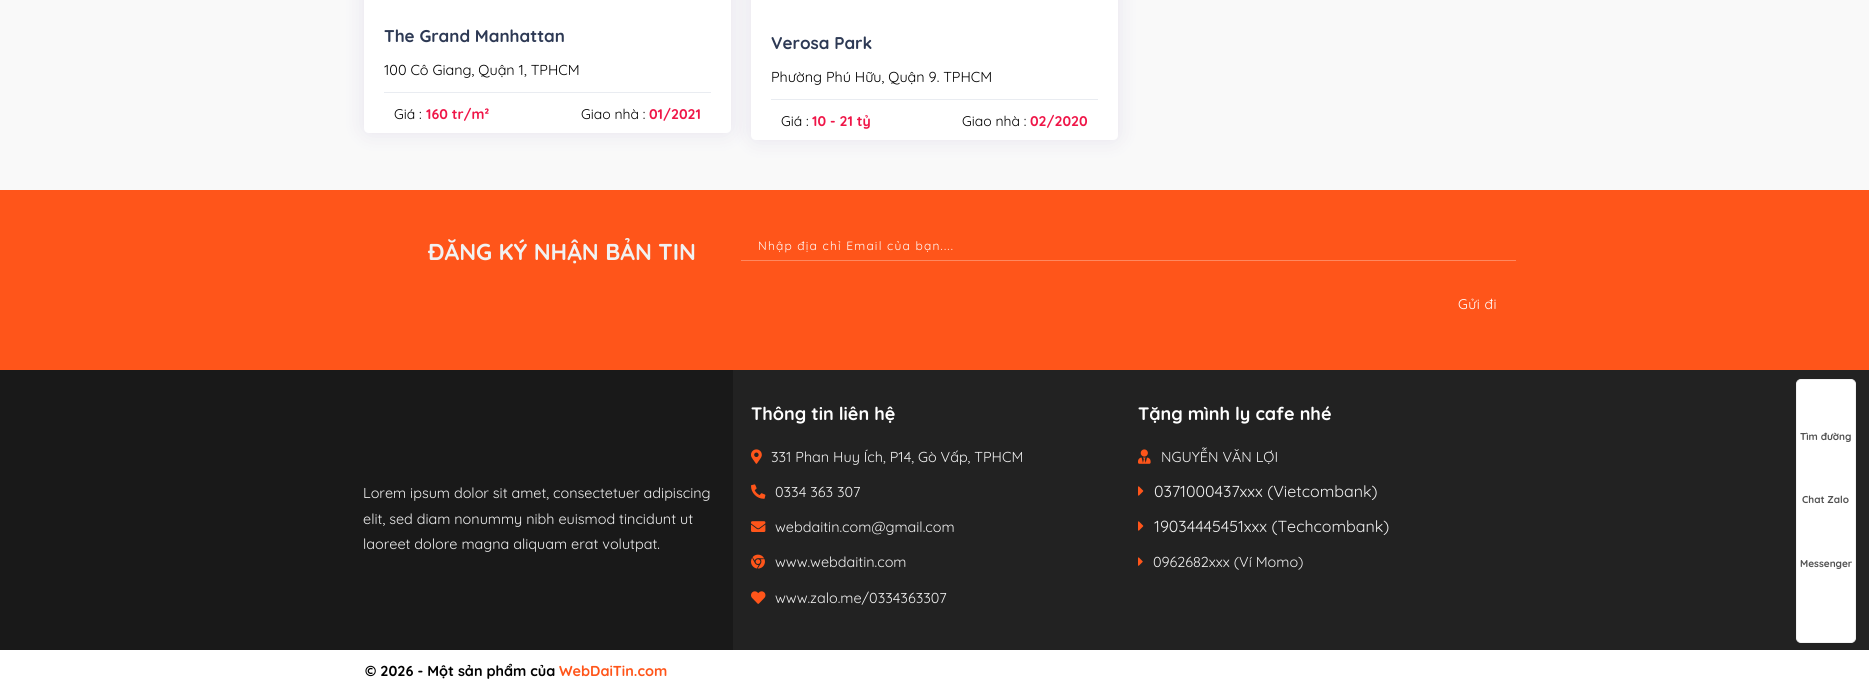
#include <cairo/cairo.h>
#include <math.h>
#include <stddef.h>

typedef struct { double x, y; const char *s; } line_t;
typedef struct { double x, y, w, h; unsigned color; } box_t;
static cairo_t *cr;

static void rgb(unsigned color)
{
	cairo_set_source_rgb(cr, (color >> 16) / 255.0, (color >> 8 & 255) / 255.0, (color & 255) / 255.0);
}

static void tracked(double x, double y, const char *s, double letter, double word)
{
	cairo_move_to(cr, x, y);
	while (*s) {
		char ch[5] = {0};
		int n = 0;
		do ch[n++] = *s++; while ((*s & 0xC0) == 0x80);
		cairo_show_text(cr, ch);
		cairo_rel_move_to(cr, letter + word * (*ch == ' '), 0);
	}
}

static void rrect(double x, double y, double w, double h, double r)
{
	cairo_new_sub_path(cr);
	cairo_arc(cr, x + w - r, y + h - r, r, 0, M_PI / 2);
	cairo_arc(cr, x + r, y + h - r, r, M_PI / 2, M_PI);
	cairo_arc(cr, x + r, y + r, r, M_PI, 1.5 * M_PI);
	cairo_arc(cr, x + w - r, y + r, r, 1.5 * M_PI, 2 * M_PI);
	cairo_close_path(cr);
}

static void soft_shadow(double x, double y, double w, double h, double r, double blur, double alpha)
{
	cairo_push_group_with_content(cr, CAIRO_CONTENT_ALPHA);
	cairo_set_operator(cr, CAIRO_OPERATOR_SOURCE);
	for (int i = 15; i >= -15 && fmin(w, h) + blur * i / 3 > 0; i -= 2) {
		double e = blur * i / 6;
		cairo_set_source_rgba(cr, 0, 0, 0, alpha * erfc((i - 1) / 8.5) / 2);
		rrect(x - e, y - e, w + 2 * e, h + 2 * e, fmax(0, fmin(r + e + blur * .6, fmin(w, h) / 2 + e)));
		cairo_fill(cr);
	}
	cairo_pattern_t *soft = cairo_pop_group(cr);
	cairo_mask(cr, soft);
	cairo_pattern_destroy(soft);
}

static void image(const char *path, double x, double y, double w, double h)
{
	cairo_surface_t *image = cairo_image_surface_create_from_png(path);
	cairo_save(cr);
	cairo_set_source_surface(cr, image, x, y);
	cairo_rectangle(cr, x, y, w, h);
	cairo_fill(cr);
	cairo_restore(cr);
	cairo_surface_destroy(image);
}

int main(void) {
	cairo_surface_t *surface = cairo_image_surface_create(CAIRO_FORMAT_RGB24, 1869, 693);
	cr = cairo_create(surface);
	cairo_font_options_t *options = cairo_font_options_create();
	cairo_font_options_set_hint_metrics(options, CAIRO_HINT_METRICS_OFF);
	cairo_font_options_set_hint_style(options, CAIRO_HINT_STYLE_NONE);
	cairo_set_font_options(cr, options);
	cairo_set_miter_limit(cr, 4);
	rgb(0xf9f9f9);
	cairo_paint(cr);
	rgb(0x3e1c83);
	soft_shadow(364, -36, 367, 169, 6, 10, 0.1);
	rgb(0xffffff);
	cairo_new_path(cr);
	cairo_move_to(cr, 364, -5);
	cairo_line_to(cr, 731, -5);
	cairo_line_to(cr, 731, 128);
	cairo_curve_to(cr, 731, 131, 729, 133, 726, 133);
	cairo_line_to(cr, 369, 133);
	cairo_curve_to(cr, 366, 133, 364, 131, 364, 128);
	cairo_close_path(cr);
	cairo_fill(cr);
	rgb(0xe9ecf1);
	cairo_rectangle(cr, 384, 92, 327, 1);
	cairo_fill(cr);
	rgb(0x3e1c83);
	soft_shadow(751, -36, 367, 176, 6, 10, 0.1);
	rgb(0xffffff);
	cairo_new_path(cr);
	cairo_move_to(cr, 751, -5);
	cairo_line_to(cr, 1118, -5);
	cairo_line_to(cr, 1118, 135);
	cairo_curve_to(cr, 1118, 138, 1116, 140, 1113, 140);
	cairo_line_to(cr, 756, 140);
	cairo_curve_to(cr, 753, 140, 751, 138, 751, 135);
	cairo_close_path(cr);
	cairo_fill(cr);
	{
		static const box_t items[] = {
			{771, 99, 327, 1, 0xe9ecf1},
			{0, 190, 1869, 180, 0xff551a},
			{741, 260, 775, 1, 0xff885f},
			{733, 370, 1136, 280, 0x222222},
			{0, 370, 733, 280, 0x191919},
		};
		for (size_t i = 0; i < sizeof items / sizeof *items; i++) {
			rgb(items[i].color);
			cairo_rectangle(cr, items[i].x, items[i].y, items[i].w, items[i].h);
			cairo_fill(cr);
		}
	}
	image("img/1.png", 751, 449, 11, 15);
	image("img/2.png", 751, 484, 15, 15);
	image("img/3.png", 751, 521, 15, 11);
	image("img/4.png", 751, 554, 14, 15);
	image("img/5.png", 751, 591, 15, 13);
	image("img/6.png", 1138, 449, 13, 15);
	image("img/7.png", 1138, 486, 6, 10);
	image("img/7.png", 1138, 521, 6, 10);
	image("img/8.png", 1138, 557, 5, 9);
	rgb(0xffffff);
	cairo_rectangle(cr, 0, 650, 1869, 43);
	cairo_fill(cr);
	rrect(1796.5, 379.5, 59, 263, 4.5);
	cairo_fill_preserve(cr);
	rgb(0xf2f2f2);
	cairo_set_line_width(cr, 1);
	cairo_stroke(cr);
	cairo_select_font_face(cr, "Quicksand", CAIRO_FONT_SLANT_NORMAL, CAIRO_FONT_WEIGHT_BOLD);
	cairo_set_font_size(cr, 17);
	rgb(0x2d3954);
	cairo_move_to(cr, 384, 42);
	cairo_show_text(cr, "The Grand Manhattan");
	cairo_select_font_face(cr, "Quicksand", CAIRO_FONT_SLANT_NORMAL, CAIRO_FONT_WEIGHT_NORMAL);
	cairo_set_font_size(cr, 14.4);
	rgb(0x000000);
	cairo_move_to(cr, 384, 75);
	cairo_show_text(cr, "100 Cô Giang, Quận 1, TPHCM");
	cairo_set_font_size(cr, 14);
	cairo_move_to(cr, 394, 119);
	cairo_show_text(cr, "Giá :");
	cairo_select_font_face(cr, "Quicksand", CAIRO_FONT_SLANT_NORMAL, CAIRO_FONT_WEIGHT_BOLD);
	rgb(0xef1648);
	cairo_move_to(cr, 426, 119);
	cairo_show_text(cr, "160 tr/m²");
	cairo_select_font_face(cr, "Quicksand", CAIRO_FONT_SLANT_NORMAL, CAIRO_FONT_WEIGHT_NORMAL);
	rgb(0x000000);
	cairo_move_to(cr, 581, 119);
	cairo_show_text(cr, "Giao nhà :");
	cairo_select_font_face(cr, "Quicksand", CAIRO_FONT_SLANT_NORMAL, CAIRO_FONT_WEIGHT_BOLD);
	rgb(0xef1648);
	cairo_move_to(cr, 649, 119);
	cairo_show_text(cr, "01/2021");
	cairo_set_font_size(cr, 17);
	rgb(0x2d3954);
	cairo_move_to(cr, 771, 49);
	cairo_show_text(cr, "Verosa Park");
	cairo_select_font_face(cr, "Quicksand", CAIRO_FONT_SLANT_NORMAL, CAIRO_FONT_WEIGHT_NORMAL);
	cairo_set_font_size(cr, 14.4);
	rgb(0x000000);
	cairo_move_to(cr, 771, 82);
	cairo_show_text(cr, "Phường Phú Hữu, Quận 9. TPHCM");
	cairo_set_font_size(cr, 14);
	cairo_move_to(cr, 781, 126);
	cairo_show_text(cr, "Giá :");
	cairo_select_font_face(cr, "Quicksand", CAIRO_FONT_SLANT_NORMAL, CAIRO_FONT_WEIGHT_BOLD);
	rgb(0xef1648);
	cairo_move_to(cr, 812, 126);
	cairo_show_text(cr, "10 - 21 tỷ");
	cairo_select_font_face(cr, "Quicksand", CAIRO_FONT_SLANT_NORMAL, CAIRO_FONT_WEIGHT_NORMAL);
	rgb(0x000000);
	cairo_move_to(cr, 962, 126);
	cairo_show_text(cr, "Giao nhà :");
	cairo_select_font_face(cr, "Quicksand", CAIRO_FONT_SLANT_NORMAL, CAIRO_FONT_WEIGHT_BOLD);
	rgb(0xef1648);
	cairo_move_to(cr, 1030, 126);
	cairo_show_text(cr, "02/2020");
	cairo_set_font_size(cr, 23);
	rgb(0xf1f1f1);
	cairo_move_to(cr, 428, 260);
	cairo_show_text(cr, "ĐĂNG KÝ NHẬN BẢN TIN");
	cairo_select_font_face(cr, "Quicksand", CAIRO_FONT_SLANT_NORMAL, CAIRO_FONT_WEIGHT_NORMAL);
	cairo_set_font_size(cr, 12);
	rgb(0xffffff);
	tracked(758, 250, "Nhập địa chỉ Email của bạn....", 1.2, 0);
	cairo_set_font_size(cr, 14);
	tracked(1458, 309, "Gửi đi", 0.5, 0);
	cairo_select_font_face(cr, "Quicksand", CAIRO_FONT_SLANT_NORMAL, CAIRO_FONT_WEIGHT_BOLD);
	cairo_set_font_size(cr, 18);
	cairo_move_to(cr, 751, 420);
	cairo_show_text(cr, "Thông tin liên hệ");
	cairo_select_font_face(cr, "Quicksand", CAIRO_FONT_SLANT_NORMAL, CAIRO_FONT_WEIGHT_NORMAL);
	cairo_set_font_size(cr, 14.4);
	rgb(0xf1f1f1);
	{
		static const line_t items[] = {
			{771, 462, "331 Phan Huy Ích, P14, Gò Vấp, TPHCM"},
			{775, 497, "0334 363 307"},
			{775, 532, "webdaitin.com@gmail.com"},
			{775, 567, "www.webdaitin.com"},
			{775, 603, "www.zalo.me/0334363307"},
		};
		for (size_t i = 0; i < sizeof items / sizeof *items; i++) {
			cairo_move_to(cr, items[i].x, items[i].y);
			cairo_show_text(cr, items[i].s);
		}
	}
	cairo_select_font_face(cr, "Quicksand", CAIRO_FONT_SLANT_NORMAL, CAIRO_FONT_WEIGHT_BOLD);
	cairo_set_font_size(cr, 18);
	rgb(0xffffff);
	cairo_move_to(cr, 1138, 420);
	cairo_show_text(cr, "Tặng mình ly cafe nhé");
	cairo_select_font_face(cr, "Quicksand", CAIRO_FONT_SLANT_NORMAL, CAIRO_FONT_WEIGHT_NORMAL);
	cairo_set_font_size(cr, 14.4);
	rgb(0xf1f1f1);
	cairo_move_to(cr, 1161, 462);
	cairo_show_text(cr, "NGUYỄN VĂN LỢI");
	cairo_set_font_size(cr, 16);
	cairo_move_to(cr, 1154, 497);
	cairo_show_text(cr, "0371000437xxx (Vietcombank)");
	cairo_move_to(cr, 1154, 532);
	cairo_show_text(cr, "19034445451xxx (Techcombank)");
	cairo_set_font_size(cr, 14.4);
	{
		static const line_t items[] = {
			{1153, 567, "0962682xxx (Ví Momo)"},
			{363, 498, "Lorem ipsum dolor sit amet, consectetuer adipiscing"},
			{363, 524, "elit, sed diam nonummy nibh euismod tincidunt ut"},
			{363, 549, "laoreet dolore magna aliquam erat volutpat."},
		};
		for (size_t i = 0; i < sizeof items / sizeof *items; i++) {
			cairo_move_to(cr, items[i].x, items[i].y);
			cairo_show_text(cr, items[i].s);
		}
	}
	cairo_select_font_face(cr, "Quicksand", CAIRO_FONT_SLANT_NORMAL, CAIRO_FONT_WEIGHT_BOLD);
	rgb(0x000000);
	cairo_move_to(cr, 365, 676);
	cairo_show_text(cr, "© 2026 - Một sản phẩm của");
	rgb(0xff551a);
	cairo_move_to(cr, 559, 676);
	cairo_show_text(cr, "WebDaiTin.com");
	cairo_set_font_size(cr, 10);
	rgb(0x515151);
	{
		static const line_t items[] = {
			{1800, 440, "Tìm đường"},
			{1802, 503, "Chat Zalo"},
			{1800, 567, "Messenger"},
		};
		for (size_t i = 0; i < sizeof items / sizeof *items; i++) {
			cairo_move_to(cr, items[i].x, items[i].y);
			cairo_show_text(cr, items[i].s);
		}
	}
	cairo_surface_write_to_png(surface, "page.png");
	cairo_font_options_destroy(options);
	cairo_destroy(cr);
	cairo_surface_destroy(surface);
	return 0;
}
